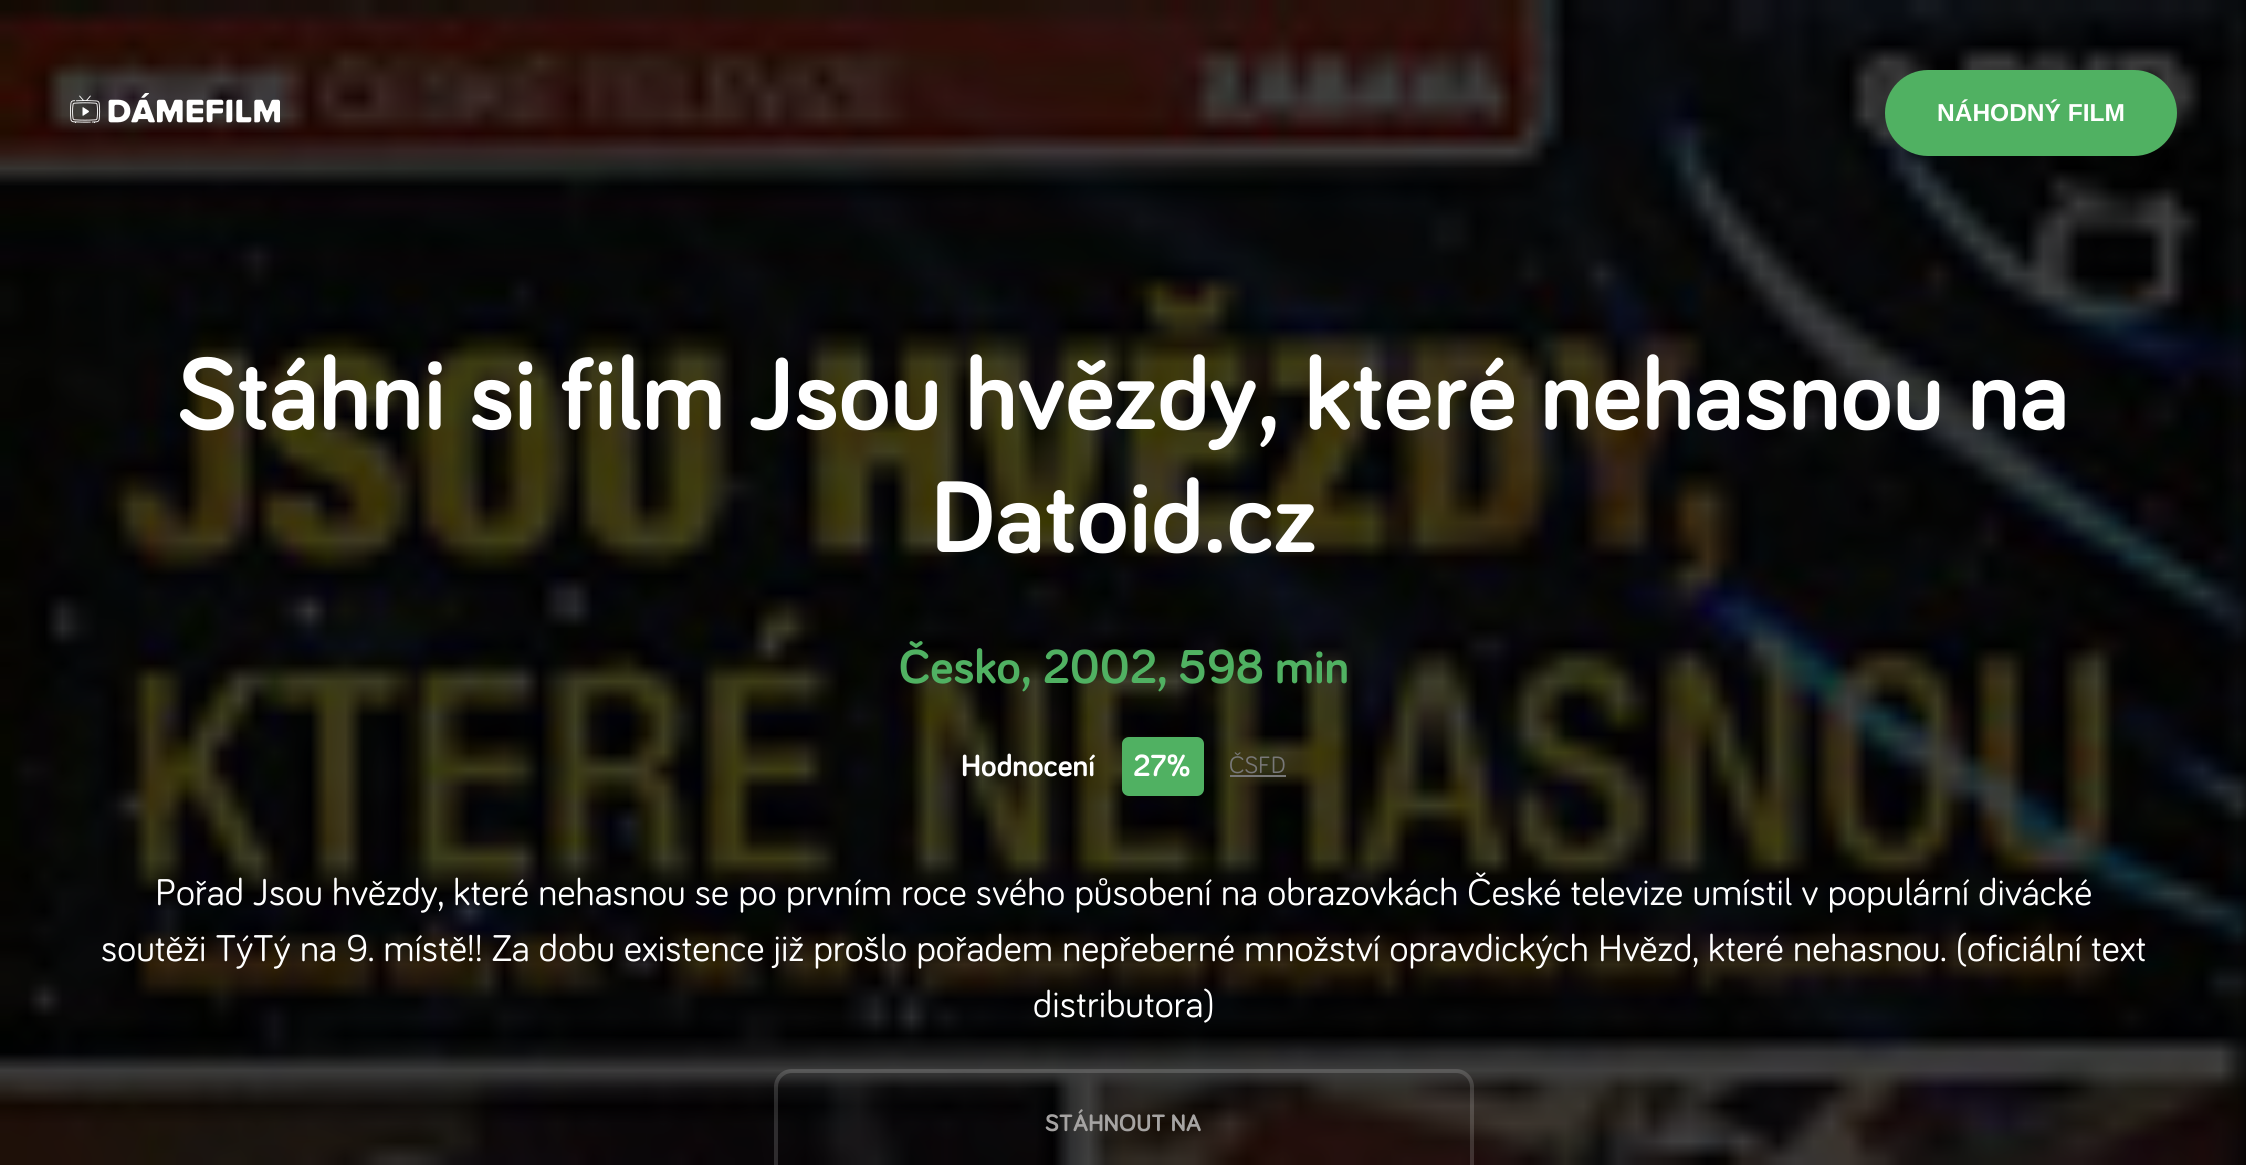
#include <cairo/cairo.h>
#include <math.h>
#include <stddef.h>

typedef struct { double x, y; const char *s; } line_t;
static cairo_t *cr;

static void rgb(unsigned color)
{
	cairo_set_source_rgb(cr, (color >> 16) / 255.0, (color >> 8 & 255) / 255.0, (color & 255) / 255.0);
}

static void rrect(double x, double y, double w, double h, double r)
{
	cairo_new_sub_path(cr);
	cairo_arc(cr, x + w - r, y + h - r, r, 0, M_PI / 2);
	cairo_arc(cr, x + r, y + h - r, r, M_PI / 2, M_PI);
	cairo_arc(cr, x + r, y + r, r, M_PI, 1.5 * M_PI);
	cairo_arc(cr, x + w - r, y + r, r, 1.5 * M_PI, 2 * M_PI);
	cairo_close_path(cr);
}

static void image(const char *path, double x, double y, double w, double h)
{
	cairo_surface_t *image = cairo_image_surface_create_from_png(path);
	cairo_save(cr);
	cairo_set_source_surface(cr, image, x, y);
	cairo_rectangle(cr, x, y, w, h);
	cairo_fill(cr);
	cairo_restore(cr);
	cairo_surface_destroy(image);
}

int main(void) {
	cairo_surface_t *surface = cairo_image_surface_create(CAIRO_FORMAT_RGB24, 2246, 1165);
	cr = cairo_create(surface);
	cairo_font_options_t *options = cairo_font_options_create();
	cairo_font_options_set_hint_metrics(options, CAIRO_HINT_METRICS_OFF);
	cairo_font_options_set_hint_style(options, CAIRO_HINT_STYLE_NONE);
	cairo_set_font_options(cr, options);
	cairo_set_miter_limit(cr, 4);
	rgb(0x010101);
	cairo_paint(cr);
	image("img/1.png", 0, 0, 2246, 1165);
	image("img/2.png", 70, 93, 210, 30);
	rgb(0x50b162);
	rrect(1885, 70, 292, 86, 43);
	cairo_fill(cr);
	rrect(1122, 737, 82, 59, 7);
	cairo_fill(cr);
	rgb(0x787878);
	cairo_rectangle(cr, 1230, 775, 56, 2);
	cairo_fill(cr);
	rrect(776, 1071, 696, 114, 16);
	cairo_set_source_rgba(cr, 1, 1, 1, 0.15);
	cairo_set_line_width(cr, 4);
	cairo_stroke(cr);
	cairo_select_font_face(cr, "Liberation Sans", CAIRO_FONT_SLANT_NORMAL, CAIRO_FONT_WEIGHT_BOLD);
	cairo_set_font_size(cr, 24.5);
	rgb(0xffffff);
	cairo_move_to(cr, 1937, 121);
	cairo_show_text(cr, "NÁHODNÝ FILM");
	cairo_select_font_face(cr, "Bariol", CAIRO_FONT_SLANT_NORMAL, CAIRO_FONT_WEIGHT_BOLD);
	cairo_set_font_size(cr, 105);
	cairo_move_to(cr, 177, 429);
	cairo_show_text(cr, "Stáhni si film Jsou hvězdy, které nehasnou na");
	cairo_move_to(cr, 931, 552);
	cairo_show_text(cr, "Datoid.cz");
	cairo_set_font_size(cr, 49);
	rgb(0x50b162);
	cairo_move_to(cr, 899, 683);
	cairo_show_text(cr, "Česko, 2002, 598 min");
	cairo_set_font_size(cr, 31.5);
	rgb(0xffffff);
	cairo_move_to(cr, 961, 776);
	cairo_show_text(cr, "Hodnocení");
	cairo_move_to(cr, 1133, 776);
	cairo_show_text(cr, "27%");
	cairo_select_font_face(cr, "Bariol", CAIRO_FONT_SLANT_NORMAL, CAIRO_FONT_WEIGHT_NORMAL);
	cairo_set_font_size(cr, 24.5);
	rgb(0x787878);
	cairo_move_to(cr, 1229, 773);
	cairo_show_text(cr, "ČSFD");
	cairo_set_font_size(cr, 38.5);
	rgb(0xffffff);
	{
		static const line_t items[] = {
			{155, 905, "Pořad Jsou hvězdy, které nehasnou se po prvním roce svého působení na obrazovkách České televize umístil v populární divácké"},
			{101, 961, "soutěži TýTý na 9. místě!! Za dobu existence již prošlo pořadem nepřeberné množství opravdických Hvězd, které nehasnou. (oficiální text"},
			{1033, 1017, "distributora)"},
		};
		for (size_t i = 0; i < sizeof items / sizeof *items; i++) {
			cairo_move_to(cr, items[i].x, items[i].y);
			cairo_show_text(cr, items[i].s);
		}
	}
	cairo_select_font_face(cr, "Bariol", CAIRO_FONT_SLANT_NORMAL, CAIRO_FONT_WEIGHT_BOLD);
	cairo_set_font_size(cr, 24.5);
	rgb(0xa6a4a3);
	cairo_move_to(cr, 1045, 1131);
	cairo_show_text(cr, "STÁHNOUT NA");
	cairo_surface_write_to_png(surface, "page.png");
	cairo_font_options_destroy(options);
	cairo_destroy(cr);
	cairo_surface_destroy(surface);
	return 0;
}
